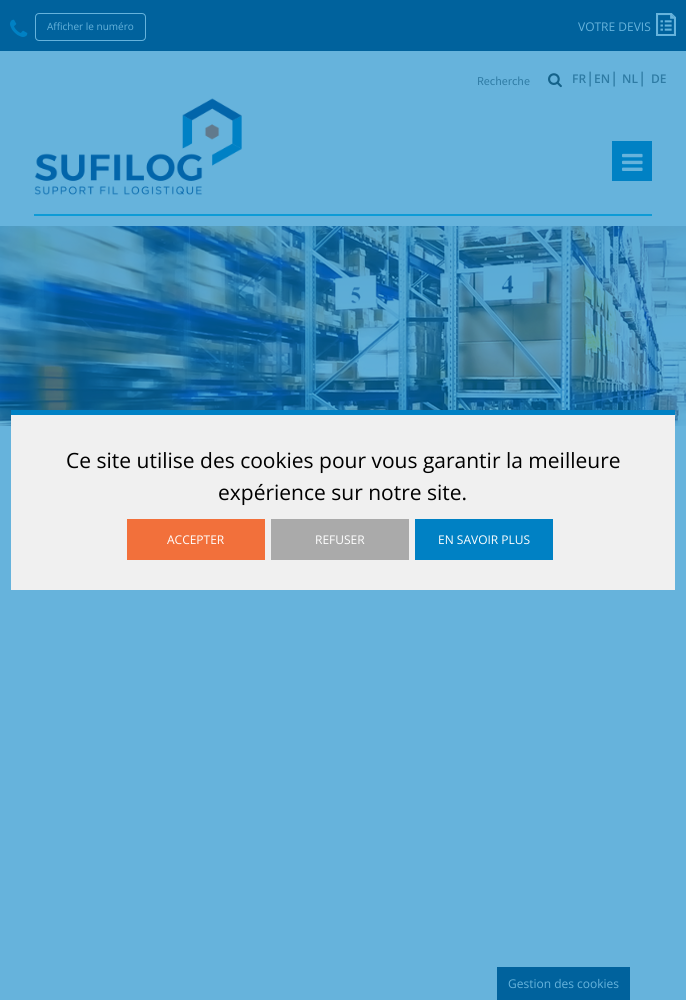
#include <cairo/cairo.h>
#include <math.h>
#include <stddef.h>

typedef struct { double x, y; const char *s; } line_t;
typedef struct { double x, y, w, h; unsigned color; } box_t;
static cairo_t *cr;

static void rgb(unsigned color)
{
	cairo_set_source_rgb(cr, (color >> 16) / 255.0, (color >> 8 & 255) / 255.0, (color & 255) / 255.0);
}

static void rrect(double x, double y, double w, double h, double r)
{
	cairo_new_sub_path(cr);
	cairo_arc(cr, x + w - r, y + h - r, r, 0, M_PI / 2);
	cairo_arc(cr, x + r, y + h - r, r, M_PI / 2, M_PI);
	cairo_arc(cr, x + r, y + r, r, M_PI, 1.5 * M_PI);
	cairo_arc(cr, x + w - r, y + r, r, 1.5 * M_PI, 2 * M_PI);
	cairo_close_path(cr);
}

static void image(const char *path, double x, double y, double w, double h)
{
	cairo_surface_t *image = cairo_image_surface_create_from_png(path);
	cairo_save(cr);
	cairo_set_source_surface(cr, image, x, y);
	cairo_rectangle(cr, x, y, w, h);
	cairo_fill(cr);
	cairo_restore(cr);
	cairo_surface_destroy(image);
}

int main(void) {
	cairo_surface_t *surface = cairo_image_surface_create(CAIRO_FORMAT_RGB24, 686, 1000);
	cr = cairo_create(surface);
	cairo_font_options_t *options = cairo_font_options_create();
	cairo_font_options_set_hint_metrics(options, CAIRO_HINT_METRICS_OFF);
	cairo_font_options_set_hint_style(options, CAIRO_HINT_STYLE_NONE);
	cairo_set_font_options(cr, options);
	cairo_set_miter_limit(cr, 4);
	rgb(0x66b3dc);
	cairo_paint(cr);
	rgb(0x00629d);
	cairo_rectangle(cr, 0, 0, 686, 51);
	cairo_fill(cr);
	image("img/1.png", 10, 19, 18, 18);
	rrect(35.5, 13.5, 110, 27, 3.5);
	rgb(0x66b3dc);
	cairo_set_line_width(cr, 1);
	cairo_stroke(cr);
	image("img/2.png", 656, 13, 20, 23);
	rgb(0x0e9bd6);
	cairo_rectangle(cr, 34, 214, 618, 2);
	cairo_fill(cr);
	image("img/3.png", 548, 73, 14, 15);
	image("img/4.png", 34, 98, 208, 97);
	rgb(0x0081c4);
	cairo_rectangle(cr, 612, 141, 40, 40);
	cairo_fill(cr);
	image("img/5.png", 622, 153, 21, 18);
	image("img/6.png", 0, 226, 686, 200);
	{
		static const box_t items[] = {
			{497, 967, 133, 33, 0x00629d},
			{11, 415, 664, 175, 0xf0f0f0},
			{11, 410, 664, 5, 0x0081c4},
			{127, 519, 138, 41, 0xf2703b},
			{271, 519, 138, 41, 0xaaaaaa},
			{415, 519, 138, 41, 0x0081c4},
		};
		for (size_t i = 0; i < sizeof items / sizeof *items; i++) {
			rgb(items[i].color);
			cairo_rectangle(cr, items[i].x, items[i].y, items[i].w, items[i].h);
			cairo_fill(cr);
		}
	}
	cairo_select_font_face(cr, "Open Sans", CAIRO_FONT_SLANT_NORMAL, CAIRO_FONT_WEIGHT_NORMAL);
	cairo_set_font_size(cr, 10);
	rgb(0x66b3dc);
	cairo_move_to(cr, 47, 30);
	cairo_show_text(cr, "Afficher le numéro");
	cairo_set_font_size(cr, 12);
	cairo_move_to(cr, 578, 31);
	cairo_show_text(cr, "VOTRE DEVIS");
	cairo_select_font_face(cr, "Source Sans Pro", CAIRO_FONT_SLANT_NORMAL, CAIRO_FONT_WEIGHT_NORMAL);
	rgb(0x2e7ba4);
	cairo_move_to(cr, 477, 85);
	cairo_show_text(cr, "Recherche");
	cairo_select_font_face(cr, "Open Sans SemiBold", CAIRO_FONT_SLANT_NORMAL, CAIRO_FONT_WEIGHT_NORMAL);
	cairo_move_to(cr, 572, 83);
	cairo_show_text(cr, "FR");
	cairo_set_font_size(cr, 15);
	cairo_move_to(cr, 586, 83);
	cairo_show_text(cr, "|");
	cairo_set_font_size(cr, 12);
	cairo_move_to(cr, 594, 83);
	cairo_show_text(cr, "EN");
	cairo_set_font_size(cr, 15);
	cairo_move_to(cr, 610, 83);
	cairo_show_text(cr, "|");
	cairo_set_font_size(cr, 12);
	cairo_move_to(cr, 622, 83);
	cairo_show_text(cr, "NL");
	cairo_set_font_size(cr, 15);
	cairo_move_to(cr, 638, 83);
	cairo_show_text(cr, "|");
	cairo_set_font_size(cr, 12);
	cairo_move_to(cr, 651, 83);
	cairo_show_text(cr, "DE");
	cairo_select_font_face(cr, "Open Sans", CAIRO_FONT_SLANT_NORMAL, CAIRO_FONT_WEIGHT_NORMAL);
	rgb(0x66b3dc);
	cairo_move_to(cr, 508, 988);
	cairo_show_text(cr, "Gestion des cookies");
	cairo_set_font_size(cr, 21);
	rgb(0x000000);
	cairo_move_to(cr, 66, 468);
	cairo_show_text(cr, "Ce site utilise des cookies pour vous garantir la meilleure");
	cairo_move_to(cr, 218, 500);
	cairo_show_text(cr, "expérience sur notre site.");
	cairo_set_font_size(cr, 12);
	rgb(0xffffff);
	{
		static const line_t items[] = {
			{167, 544, "ACCEPTER"},
			{315, 544, "REFUSER"},
			{438, 544, "EN SAVOIR PLUS"},
		};
		for (size_t i = 0; i < sizeof items / sizeof *items; i++) {
			cairo_move_to(cr, items[i].x, items[i].y);
			cairo_show_text(cr, items[i].s);
		}
	}
	cairo_surface_write_to_png(surface, "page.png");
	cairo_font_options_destroy(options);
	cairo_destroy(cr);
	cairo_surface_destroy(surface);
	return 0;
}
